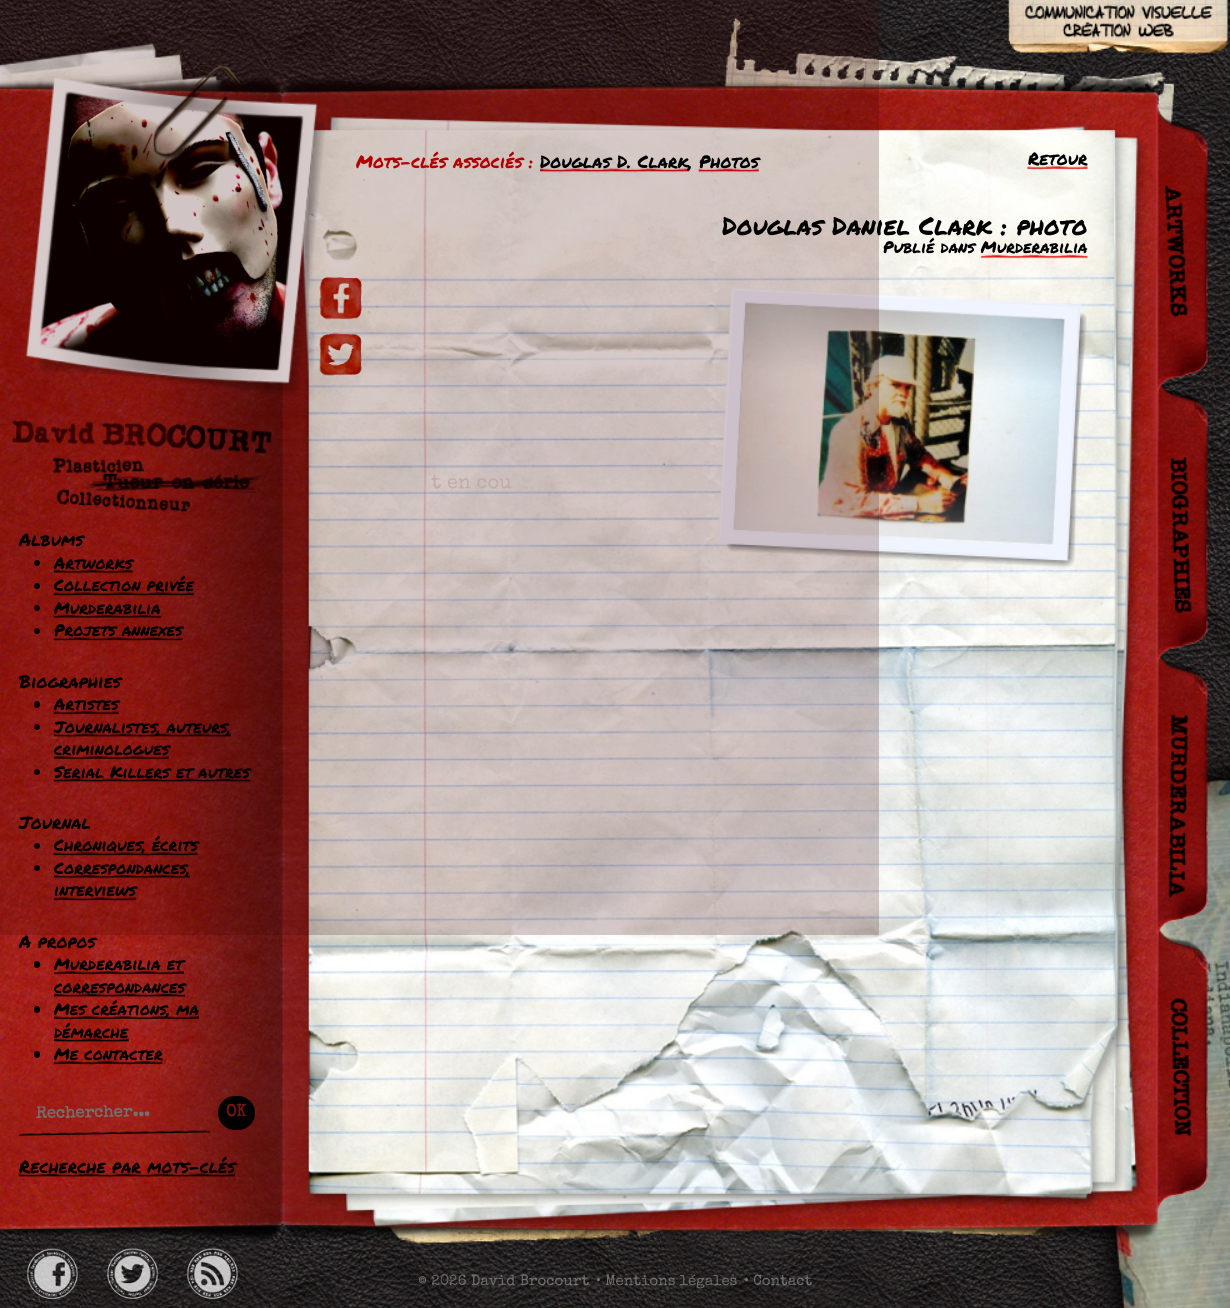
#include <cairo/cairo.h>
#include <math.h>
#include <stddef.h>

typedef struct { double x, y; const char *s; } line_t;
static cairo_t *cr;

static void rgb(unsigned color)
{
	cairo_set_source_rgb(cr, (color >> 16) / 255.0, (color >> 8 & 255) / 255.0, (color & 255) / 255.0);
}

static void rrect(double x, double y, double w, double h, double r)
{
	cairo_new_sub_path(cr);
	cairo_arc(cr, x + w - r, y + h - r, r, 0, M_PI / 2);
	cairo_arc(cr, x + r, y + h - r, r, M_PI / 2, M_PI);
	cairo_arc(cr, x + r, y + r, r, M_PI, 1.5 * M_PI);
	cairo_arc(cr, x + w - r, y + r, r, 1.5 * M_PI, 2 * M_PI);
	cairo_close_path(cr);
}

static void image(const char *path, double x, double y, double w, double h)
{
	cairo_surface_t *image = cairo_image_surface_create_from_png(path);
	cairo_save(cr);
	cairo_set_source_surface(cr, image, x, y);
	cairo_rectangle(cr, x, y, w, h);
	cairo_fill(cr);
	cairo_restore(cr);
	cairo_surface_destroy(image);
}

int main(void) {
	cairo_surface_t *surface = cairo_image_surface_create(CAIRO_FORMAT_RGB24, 1230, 1308);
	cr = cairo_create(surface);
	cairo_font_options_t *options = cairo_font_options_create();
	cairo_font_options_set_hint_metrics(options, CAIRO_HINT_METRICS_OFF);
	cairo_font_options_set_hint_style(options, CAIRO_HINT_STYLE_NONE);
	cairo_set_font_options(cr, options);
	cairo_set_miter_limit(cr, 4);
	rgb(0xffffff);
	cairo_paint(cr);
	image("img/1.png", 0, 0, 1230, 1308);
	image("img/4.png", 38, 91, 266, 281);
	image("img/33.png", 1086, 755, 144, 553);
	image("img/2.png", 0, 17, 1208, 1227);
	image("img/3.png", 1007, 0, 222, 54);
	image("img/5.png", 540, 167, 149, 6);
	image("img/6.png", 698, 167, 61, 6);
	image("img/7.png", 1027, 165, 61, 5);
	image("img/8.png", 981, 254, 107, 5);
	image("img/9.png", 319, 277, 43, 43);
	image("img/10.png", 718, 287, 369, 281);
	image("img/11.png", 319, 333, 43, 43);
	image("img/12.png", 1164, 186, 24, 131);
	image("img/13.png", 1170, 457, 22, 156);
	image("img/14.png", 1168, 714, 21, 184);
	image("img/15.png", 1170, 997, 22, 140);
	rgb(0x000000);
	cairo_arc(cr, 37, 563, 3, 0, 2 * M_PI);
	cairo_fill(cr);
	image("img/16.png", 53, 569, 80, 5);
	cairo_arc(cr, 37, 586, 3, 0, 2 * M_PI);
	cairo_fill(cr);
	image("img/17.png", 53, 591, 141, 6);
	cairo_arc(cr, 37, 608, 3, 0, 2 * M_PI);
	cairo_fill(cr);
	image("img/18.png", 53, 614, 109, 5);
	cairo_arc(cr, 37, 631, 3, 0, 2 * M_PI);
	cairo_fill(cr);
	image("img/19.png", 53, 636, 130, 6);
	rrect(34, 701, 6, 7, 3);
	cairo_fill(cr);
	image("img/20.png", 53, 710, 66, 5);
	cairo_arc(cr, 37, 727, 3, 0, 2 * M_PI);
	cairo_fill(cr);
	image("img/21.png", 54, 732, 177, 28);
	cairo_arc(cr, 37, 772, 3, 0, 2 * M_PI);
	cairo_fill(cr);
	image("img/22.png", 53, 777, 197, 6);
	cairo_arc(cr, 37, 846, 3, 0, 2 * M_PI);
	cairo_fill(cr);
	image("img/23.png", 53, 851, 145, 6);
	cairo_arc(cr, 37, 868, 3, 0, 2 * M_PI);
	cairo_fill(cr);
	image("img/24.png", 54, 874, 136, 27);
	rrect(34, 961, 6, 7, 3);
	cairo_fill(cr);
	image("img/25.png", 54, 970, 131, 28);
	rrect(34, 1006, 6, 7, 3);
	cairo_fill(cr);
	image("img/26.png", 54, 1015, 145, 28);
	rrect(34, 1051, 6, 7, 3);
	cairo_fill(cr);
	image("img/27.png", 53, 1060, 110, 5);
	image("img/28.png", 19, 1130, 192, 7);
	rrect(218, 1096, 37, 34, 17);
	cairo_fill(cr);
	image("img/29.png", 18, 1172, 217, 6);
	image("img/30.png", 27, 1248, 51, 51);
	image("img/31.png", 107, 1248, 51, 51);
	image("img/32.png", 187, 1248, 51, 51);
	cairo_set_source_rgba(cr, 0, 0, 0, 0.11);
	cairo_rectangle(cr, 0, 0, 879, 935);
	cairo_fill(cr);
	cairo_set_source_rgba(cr, 0.467, 0, 0, 0.11);
	cairo_rectangle(cr, 0, 0, 879, 935);
	cairo_fill(cr);
	cairo_select_font_face(cr, "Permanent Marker", CAIRO_FONT_SLANT_NORMAL, CAIRO_FONT_WEIGHT_NORMAL);
	cairo_set_font_size(cr, 17.5);
	rgb(0xb20000);
	cairo_move_to(cr, 356, 168);
	cairo_show_text(cr, "Mots-clés associés :");
	rgb(0x000000);
	{
		static const line_t items[] = {
			{540, 168, "Douglas D. Clark,"},
			{699, 168, "Photos"},
			{1028, 165, "Retour"},
		};
		for (size_t i = 0; i < sizeof items / sizeof *items; i++) {
			cairo_move_to(cr, items[i].x, items[i].y);
			cairo_show_text(cr, items[i].s);
		}
	}
	cairo_set_font_size(cr, 25);
	cairo_move_to(cr, 722, 235);
	cairo_show_text(cr, "Douglas Daniel Clark : photo");
	cairo_set_font_size(cr, 16.25);
	cairo_move_to(cr, 883, 253);
	cairo_show_text(cr, "Publié dans Murderabilia");
	cairo_set_font_size(cr, 17.5);
	cairo_move_to(cr, 19, 546);
	cairo_show_text(cr, "Albums");
	cairo_set_font_size(cr, 16.25);
	{
		static const line_t items[] = {
			{54, 569, "Artworks"},
			{54, 591, "Collection privée"},
			{54, 614, "Murderabilia"},
			{54, 636, "Projets annexes"},
		};
		for (size_t i = 0; i < sizeof items / sizeof *items; i++) {
			cairo_move_to(cr, items[i].x, items[i].y);
			cairo_show_text(cr, items[i].s);
		}
	}
	cairo_set_font_size(cr, 17.5);
	cairo_move_to(cr, 19, 688);
	cairo_show_text(cr, "Biographies");
	cairo_set_font_size(cr, 16.25);
	{
		static const line_t items[] = {
			{54, 710, "Artistes"},
			{54, 733, "Journalistes, auteurs,"},
			{54, 755, "criminologues"},
			{54, 778, "Serial Killers et autres"},
		};
		for (size_t i = 0; i < sizeof items / sizeof *items; i++) {
			cairo_move_to(cr, items[i].x, items[i].y);
			cairo_show_text(cr, items[i].s);
		}
	}
	cairo_set_font_size(cr, 17.5);
	cairo_move_to(cr, 19, 829);
	cairo_show_text(cr, "Journal");
	cairo_set_font_size(cr, 16.25);
	{
		static const line_t items[] = {
			{54, 851, "Chroniques, écrits"},
			{54, 874, "Correspondances,"},
			{54, 896, "interviews"},
		};
		for (size_t i = 0; i < sizeof items / sizeof *items; i++) {
			cairo_move_to(cr, items[i].x, items[i].y);
			cairo_show_text(cr, items[i].s);
		}
	}
	cairo_set_font_size(cr, 17.5);
	cairo_move_to(cr, 19, 948);
	cairo_show_text(cr, "A propos");
	cairo_set_font_size(cr, 16.25);
	{
		static const line_t items[] = {
			{54, 970, "Murderabilia et"},
			{54, 993, "correspondances"},
			{54, 1015, "Mes créations, ma"},
			{54, 1038, "démarche"},
			{54, 1060, "Me contacter"},
		};
		for (size_t i = 0; i < sizeof items / sizeof *items; i++) {
			cairo_move_to(cr, items[i].x, items[i].y);
			cairo_show_text(cr, items[i].s);
		}
	}
	cairo_save(cr);
	cairo_new_path(cr);
	cairo_move_to(cr, 35.5, 1106.5);
	cairo_line_to(cr, 178, 1104);
	cairo_line_to(cr, 178.5, 1120);
	cairo_line_to(cr, 35.5, 1122.5);
	cairo_close_path(cr);
	cairo_clip(cr);
	cairo_select_font_face(cr, "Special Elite", CAIRO_FONT_SLANT_NORMAL, CAIRO_FONT_WEIGHT_BOLD);
	cairo_set_font_size(cr, 16.75);
	rgb(0x707070);
	cairo_save(cr);
	cairo_translate(cr, 36, 1118);
	cairo_rotate(cr, -1 * M_PI / 180);
	cairo_move_to(cr, 0, 0);
	cairo_show_text(cr, "Rechercher...");
	cairo_restore(cr);
	cairo_restore(cr);
	cairo_select_font_face(cr, "Special Elite", CAIRO_FONT_SLANT_NORMAL, CAIRO_FONT_WEIGHT_BOLD);
	cairo_set_font_size(cr, 16.75);
	rgb(0x721712);
	cairo_move_to(cr, 226, 1116);
	cairo_show_text(cr, "OK");
	cairo_select_font_face(cr, "Permanent Marker", CAIRO_FONT_SLANT_NORMAL, CAIRO_FONT_WEIGHT_NORMAL);
	cairo_set_font_size(cr, 17.5);
	rgb(0x000000);
	cairo_move_to(cr, 19, 1173);
	cairo_show_text(cr, "Recherche par mots-clés");
	cairo_select_font_face(cr, "Special Elite", CAIRO_FONT_SLANT_NORMAL, CAIRO_FONT_WEIGHT_NORMAL);
	cairo_set_font_size(cr, 20);
	rgb(0xc3aaa6);
	cairo_move_to(cr, 431, 488);
	cairo_show_text(cr, "t en cou");
	cairo_set_font_size(cr, 15);
	rgb(0x707070);
	{
		static const line_t items[] = {
			{418, 1285, "© 2026 David Brocourt"},
			{596, 1285, "• Mentions légales"},
			{744, 1285, "• Contact"},
		};
		for (size_t i = 0; i < sizeof items / sizeof *items; i++) {
			cairo_move_to(cr, items[i].x, items[i].y);
			cairo_show_text(cr, items[i].s);
		}
	}
	cairo_surface_write_to_png(surface, "page.png");
	cairo_font_options_destroy(options);
	cairo_destroy(cr);
	cairo_surface_destroy(surface);
	return 0;
}
